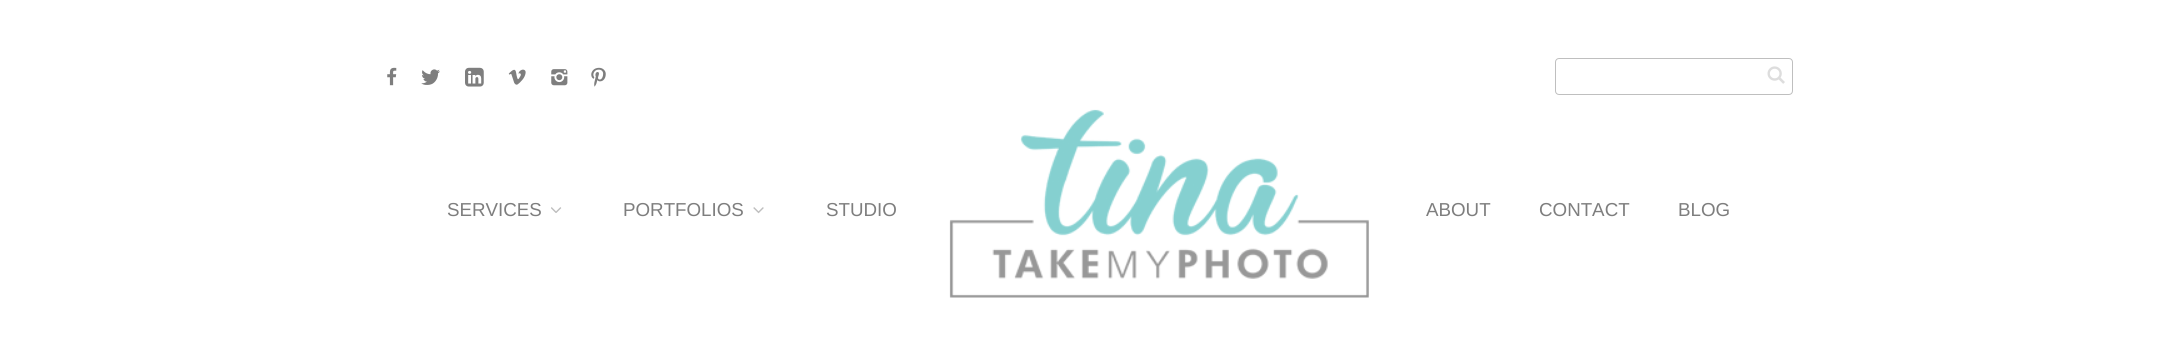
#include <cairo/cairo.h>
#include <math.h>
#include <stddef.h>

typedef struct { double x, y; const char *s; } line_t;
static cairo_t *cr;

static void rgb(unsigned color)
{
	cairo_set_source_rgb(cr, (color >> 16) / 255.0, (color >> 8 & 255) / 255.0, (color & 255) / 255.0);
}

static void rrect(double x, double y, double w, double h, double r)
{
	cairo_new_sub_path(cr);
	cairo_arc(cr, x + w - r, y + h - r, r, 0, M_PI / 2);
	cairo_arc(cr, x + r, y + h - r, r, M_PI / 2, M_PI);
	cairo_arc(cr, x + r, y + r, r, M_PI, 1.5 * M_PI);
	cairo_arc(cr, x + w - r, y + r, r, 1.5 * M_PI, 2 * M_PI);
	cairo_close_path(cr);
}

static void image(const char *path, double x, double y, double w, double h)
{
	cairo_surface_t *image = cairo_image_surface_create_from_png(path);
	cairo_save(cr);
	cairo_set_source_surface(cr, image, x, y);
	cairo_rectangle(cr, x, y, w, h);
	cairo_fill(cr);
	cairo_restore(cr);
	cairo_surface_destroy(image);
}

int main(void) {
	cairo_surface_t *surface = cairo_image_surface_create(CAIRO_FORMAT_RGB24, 2177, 346);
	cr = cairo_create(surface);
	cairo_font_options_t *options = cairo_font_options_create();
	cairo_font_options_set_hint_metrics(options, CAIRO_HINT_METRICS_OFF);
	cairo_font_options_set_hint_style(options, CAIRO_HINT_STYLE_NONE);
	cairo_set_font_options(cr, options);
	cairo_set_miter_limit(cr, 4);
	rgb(0xffffff);
	cairo_paint(cr);
	image("img/1.png", 387, 67, 10, 19);
	image("img/2.png", 421, 69, 19, 16);
	image("img/3.png", 465, 67, 19, 20);
	image("img/4.png", 508, 69, 18, 16);
	image("img/5.png", 551, 69, 17, 17);
	image("img/6.png", 591, 67, 15, 20);
	image("img/7.png", 1767, 66, 18, 18);
	rrect(1555.5, 58.5, 237, 36, 3.5);
	rgb(0xbfbfbf);
	cairo_set_line_width(cr, 1);
	cairo_stroke(cr);
	image("img/8.png", 551, 207, 11, 6);
	image("img/9.png", 753, 207, 11, 7);
	image("img/10.png", 949, 109, 420, 189);
	cairo_select_font_face(cr, "Arimo", CAIRO_FONT_SLANT_NORMAL, CAIRO_FONT_WEIGHT_NORMAL);
	cairo_set_font_size(cr, 18.75);
	rgb(0x7e7e7e);
	{
		static const line_t items[] = {
			{447, 216, "SERVICES"},
			{623, 216, "PORTFOLIOS"},
			{826, 216, "STUDIO"},
			{1426, 216, "ABOUT"},
			{1539, 216, "CONTACT"},
			{1678, 216, "BLOG"},
		};
		for (size_t i = 0; i < sizeof items / sizeof *items; i++) {
			cairo_move_to(cr, items[i].x, items[i].y);
			cairo_show_text(cr, items[i].s);
		}
	}
	cairo_surface_write_to_png(surface, "page.png");
	cairo_font_options_destroy(options);
	cairo_destroy(cr);
	cairo_surface_destroy(surface);
	return 0;
}
